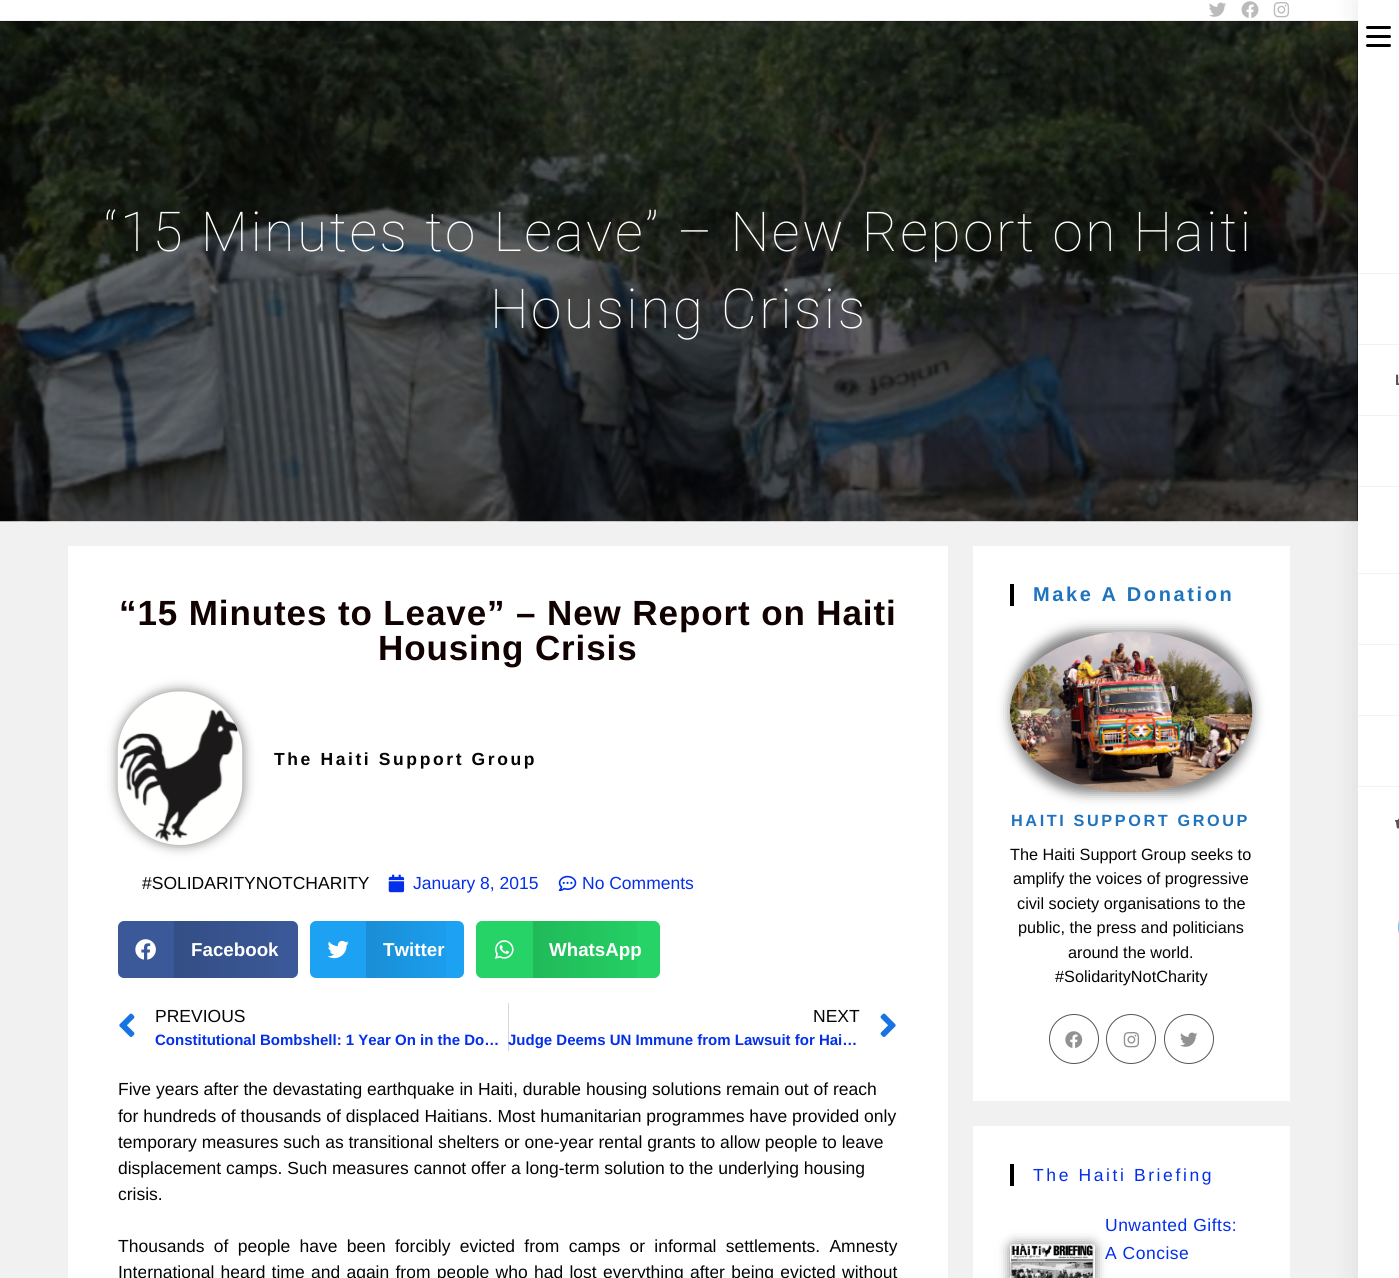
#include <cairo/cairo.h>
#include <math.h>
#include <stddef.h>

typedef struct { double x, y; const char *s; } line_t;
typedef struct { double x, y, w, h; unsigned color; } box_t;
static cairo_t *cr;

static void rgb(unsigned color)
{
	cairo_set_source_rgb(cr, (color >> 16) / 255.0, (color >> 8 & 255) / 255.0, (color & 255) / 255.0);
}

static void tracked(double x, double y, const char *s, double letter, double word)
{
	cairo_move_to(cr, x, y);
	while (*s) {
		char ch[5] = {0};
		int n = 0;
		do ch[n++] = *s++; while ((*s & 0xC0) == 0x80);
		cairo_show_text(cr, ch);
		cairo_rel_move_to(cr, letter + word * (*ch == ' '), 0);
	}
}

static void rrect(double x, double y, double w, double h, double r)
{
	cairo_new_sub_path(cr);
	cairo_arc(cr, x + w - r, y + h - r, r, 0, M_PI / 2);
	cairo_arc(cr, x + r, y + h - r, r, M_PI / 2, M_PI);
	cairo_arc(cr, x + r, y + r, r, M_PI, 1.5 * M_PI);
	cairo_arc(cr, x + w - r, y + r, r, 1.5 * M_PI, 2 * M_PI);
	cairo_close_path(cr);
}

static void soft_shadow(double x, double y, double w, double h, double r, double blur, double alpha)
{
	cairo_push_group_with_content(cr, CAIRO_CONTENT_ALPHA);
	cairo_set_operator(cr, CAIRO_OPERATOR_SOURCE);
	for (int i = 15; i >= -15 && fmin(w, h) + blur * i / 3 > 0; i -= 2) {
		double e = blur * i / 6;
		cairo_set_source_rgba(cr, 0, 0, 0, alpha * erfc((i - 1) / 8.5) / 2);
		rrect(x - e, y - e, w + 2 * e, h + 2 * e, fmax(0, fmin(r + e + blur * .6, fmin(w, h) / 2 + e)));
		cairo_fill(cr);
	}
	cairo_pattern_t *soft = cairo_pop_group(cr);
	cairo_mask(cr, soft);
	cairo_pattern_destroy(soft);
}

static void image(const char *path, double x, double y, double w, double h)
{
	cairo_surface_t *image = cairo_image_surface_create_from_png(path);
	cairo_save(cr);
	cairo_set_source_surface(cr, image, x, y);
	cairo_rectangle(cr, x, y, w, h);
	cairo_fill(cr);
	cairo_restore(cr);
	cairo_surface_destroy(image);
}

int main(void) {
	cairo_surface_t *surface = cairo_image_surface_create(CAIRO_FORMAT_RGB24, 1399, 1278);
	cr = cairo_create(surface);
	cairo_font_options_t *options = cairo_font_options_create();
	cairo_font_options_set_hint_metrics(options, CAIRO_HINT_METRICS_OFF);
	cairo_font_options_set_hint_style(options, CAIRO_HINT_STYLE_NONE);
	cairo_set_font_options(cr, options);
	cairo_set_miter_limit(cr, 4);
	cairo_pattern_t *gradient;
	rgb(0xf1f1f1);
	cairo_paint(cr);
	rgb(0xffffff);
	cairo_rectangle(cr, 0, 0, 1358, 20);
	cairo_fill(cr);
	image("img/1.png", 1209, 2, 17, 15);
	image("img/2.png", 1241, 1, 18, 17);
	image("img/3.png", 1273, 2, 17, 16);
	rgb(0x090909);
	cairo_rectangle(cr, 0, 21, 1358, 500);
	cairo_fill(cr);
	image("img/4.png", 0, 21, 1358, 501);
	rgb(0xffffff);
	cairo_rectangle(cr, 68, 546, 880, 732);
	cairo_fill(cr);
	rgb(0x000000);
	soft_shadow(118, 691, 125, 154, 62.5, 6, 0.5);
	image("img/5.png", 117, 691, 126, 154);
	image("img/6.png", 388, 874, 17, 19);
	image("img/7.png", 558, 875, 19, 17);
	rgb(0x3b5998);
	rrect(118, 921, 180, 57, 6);
	cairo_fill(cr);
	image("img/8.png", 135, 939, 21, 21);
	gradient = cairo_pattern_create_linear(174, 949, 298, 949);
	cairo_pattern_add_color_stop_rgba(gradient, 0, 0, 0, 0, 0.12);
	cairo_pattern_add_color_stop_rgba(gradient, 1, 0, 0, 0, 0);
	cairo_set_source(cr, gradient);
	cairo_pattern_destroy(gradient);
	cairo_rectangle(cr, 174, 921, 102, 57);
	cairo_fill(cr);
	rgb(0x1da1f2);
	rrect(310, 921, 154, 57, 6);
	cairo_fill(cr);
	image("img/9.png", 327, 940, 22, 19);
	gradient = cairo_pattern_create_linear(366, 949, 464, 949);
	cairo_pattern_add_color_stop_rgba(gradient, 0, 0, 0, 0, 0.12);
	cairo_pattern_add_color_stop_rgba(gradient, 1, 0, 0, 0, 0);
	cairo_set_source(cr, gradient);
	cairo_pattern_destroy(gradient);
	cairo_rectangle(cr, 366, 921, 80, 57);
	cairo_fill(cr);
	rgb(0x25d366);
	rrect(476, 921, 184, 57, 6);
	cairo_fill(cr);
	image("img/10.png", 495, 940, 19, 19);
	gradient = cairo_pattern_create_linear(533, 949, 660, 949);
	cairo_pattern_add_color_stop_rgba(gradient, 0, 0, 0, 0, 0.12);
	cairo_pattern_add_color_stop_rgba(gradient, 1, 0, 0, 0, 0);
	cairo_set_source(cr, gradient);
	cairo_pattern_destroy(gradient);
	cairo_rectangle(cr, 533, 921, 104, 57);
	cairo_fill(cr);
	image("img/11.png", 119, 1013, 16, 24);
	rgb(0xd5d8dc);
	cairo_rectangle(cr, 508, 1003, 1, 48);
	cairo_fill(cr);
	image("img/12.png", 880, 1013, 16, 24);
	rgb(0xffffff);
	cairo_rectangle(cr, 973, 546, 317, 555);
	cairo_fill(cr);
	rgb(0x000000);
	cairo_rectangle(cr, 1010, 584, 4, 22);
	cairo_fill(cr);
	rgb(0x000000);
	soft_shadow(1010, 631, 243, 162, 81, 6, 0.5);
	image("img/13.png", 1010, 631, 243, 162);
	cairo_arc(cr, 1074, 1039, 24.5, 0, 2 * M_PI);
	rgb(0x555555);
	cairo_set_line_width(cr, 1);
	cairo_stroke(cr);
	image("img/14.png", 1065, 1031, 18, 17);
	cairo_arc(cr, 1131, 1039, 24.5, 0, 2 * M_PI);
	cairo_stroke(cr);
	image("img/15.png", 1123, 1032, 17, 16);
	cairo_arc(cr, 1189, 1039, 24.5, 0, 2 * M_PI);
	cairo_stroke(cr);
	image("img/16.png", 1180, 1032, 18, 15);
	rgb(0xffffff);
	cairo_rectangle(cr, 973, 1126, 317, 152);
	cairo_fill(cr);
	rgb(0x000000);
	cairo_rectangle(cr, 1010, 1164, 4, 22);
	cairo_fill(cr);
	rgb(0x000000);
	soft_shadow(1010, 1244, 85, 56, 4, 6, 0.5);
	image("img/17.png", 1010, 1243, 85, 35);
	soft_shadow(1358, 0, 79, 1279, 0, 12.5, 0.1);
	rgb(0xffffff);
	cairo_rectangle(cr, 1358, 0, 41, 1278);
	cairo_fill(cr);
	rgb(0x000000);
	rrect(1366, 35, 25, 3, 1.5);
	cairo_fill(cr);
	rrect(1366, 26, 25, 3, 1.5);
	cairo_fill(cr);
	rrect(1366, 44, 25, 3, 1.5);
	cairo_fill(cr);
	{
		static const box_t items[] = {
			{1358, 273, 41, 1, 0xf2f2f2},
			{1358, 344, 41, 1, 0xf2f2f2},
			{1358, 415, 41, 1, 0xf2f2f2},
			{1358, 486, 41, 1, 0xf2f2f2},
			{1358, 573, 41, 1, 0xf2f2f2},
			{1358, 644, 41, 1, 0xf2f2f2},
			{1358, 715, 41, 1, 0xf2f2f2},
			{1358, 786, 41, 1, 0xf2f2f2},
		};
		for (size_t i = 0; i < sizeof items / sizeof *items; i++) {
			rgb(items[i].color);
			cairo_rectangle(cr, items[i].x, items[i].y, items[i].w, items[i].h);
			cairo_fill(cr);
		}
	}
	image("img/18.png", 1395, 818, 4, 11);
	rgb(0x46d4fe);
	rrect(1398, 908, 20, 38, 18.5);
	cairo_fill(cr);
	cairo_select_font_face(cr, "Roboto Thin", CAIRO_FONT_SLANT_NORMAL, CAIRO_FONT_WEIGHT_NORMAL);
	cairo_set_font_size(cr, 55);
	rgb(0xffffff);
	tracked(104, 251, "“15 Minutes to Leave” – New Report on Haiti", 2.5, 0);
	tracked(490, 328, "Housing Crisis", 2.5, 0);
	cairo_select_font_face(cr, "Liberation Sans", CAIRO_FONT_SLANT_NORMAL, CAIRO_FONT_WEIGHT_BOLD);
	cairo_set_font_size(cr, 35);
	rgb(0x120101);
	tracked(119, 625, "“15 Minutes to Leave” – New Report on Haiti", 0.9, 0);
	tracked(378, 660, "Housing Crisis", 0.9, 0);
	cairo_set_font_size(cr, 17.5);
	rgb(0x050404);
	tracked(274, 765, "The Haiti Support Group", 2.6, 0);
	cairo_select_font_face(cr, "Liberation Sans", CAIRO_FONT_SLANT_NORMAL, CAIRO_FONT_WEIGHT_NORMAL);
	cairo_move_to(cr, 142, 889);
	cairo_show_text(cr, "#SOLIDARITYNOTCHARITY");
	rgb(0x032fea);
	cairo_move_to(cr, 413, 889);
	cairo_show_text(cr, "January 8, 2015");
	cairo_move_to(cr, 582, 889);
	cairo_show_text(cr, "No Comments");
	cairo_select_font_face(cr, "Liberation Sans", CAIRO_FONT_SLANT_NORMAL, CAIRO_FONT_WEIGHT_BOLD);
	cairo_set_font_size(cr, 18.75);
	rgb(0xffffff);
	{
		static const line_t items[] = {
			{191, 956, "Facebook"},
			{383, 956, "Twitter"},
			{549, 956, "WhatsApp"},
		};
		for (size_t i = 0; i < sizeof items / sizeof *items; i++) {
			cairo_move_to(cr, items[i].x, items[i].y);
			cairo_show_text(cr, items[i].s);
		}
	}
	cairo_select_font_face(cr, "Liberation Sans", CAIRO_FONT_SLANT_NORMAL, CAIRO_FONT_WEIGHT_NORMAL);
	cairo_set_font_size(cr, 17.5);
	rgb(0x050404);
	cairo_move_to(cr, 155, 1022);
	cairo_show_text(cr, "PREVIOUS");
	cairo_select_font_face(cr, "Liberation Sans", CAIRO_FONT_SLANT_NORMAL, CAIRO_FONT_WEIGHT_BOLD);
	cairo_set_font_size(cr, 15);
	rgb(0x032fea);
	cairo_move_to(cr, 155, 1045);
	cairo_show_text(cr, "Constitutional Bombshell: 1 Year On in the Do…");
	cairo_select_font_face(cr, "Liberation Sans", CAIRO_FONT_SLANT_NORMAL, CAIRO_FONT_WEIGHT_NORMAL);
	cairo_set_font_size(cr, 17.5);
	rgb(0x050404);
	cairo_move_to(cr, 813, 1022);
	cairo_show_text(cr, "NEXT");
	cairo_select_font_face(cr, "Liberation Sans", CAIRO_FONT_SLANT_NORMAL, CAIRO_FONT_WEIGHT_BOLD);
	cairo_set_font_size(cr, 15);
	rgb(0x032fea);
	cairo_move_to(cr, 508, 1045);
	cairo_show_text(cr, "Judge Deems UN Immune from Lawsuit for Hai…");
	cairo_select_font_face(cr, "Liberation Sans", CAIRO_FONT_SLANT_NORMAL, CAIRO_FONT_WEIGHT_NORMAL);
	cairo_set_font_size(cr, 17.5);
	rgb(0x050404);
	{
		static const line_t items[] = {
			{118, 1095, "Five years after the devastating earthquake in Haiti, durable housing solutions remain out of reach"},
			{118, 1122, "for hundreds of thousands of displaced Haitians. Most humanitarian programmes have provided only"},
			{118, 1148, "temporary measures such as transitional shelters or one-year rental grants to allow people to leave"},
			{118, 1174, "displacement camps. Such measures cannot offer a long-term solution to the underlying housing"},
			{118, 1200, "crisis."},
		};
		for (size_t i = 0; i < sizeof items / sizeof *items; i++) {
			cairo_move_to(cr, items[i].x, items[i].y);
			cairo_show_text(cr, items[i].s);
		}
	}
	tracked(118, 1252, "Thousands of people have been forcibly evicted from camps or informal settlements. Amnesty", 0, 4.4);
	tracked(118, 1278, "International heard time and again from people who had lost everything after being evicted without", 0, 1.4);
	cairo_select_font_face(cr, "Liberation Sans", CAIRO_FONT_SLANT_NORMAL, CAIRO_FONT_WEIGHT_BOLD);
	cairo_set_font_size(cr, 20);
	rgb(0x1e73be);
	tracked(1033, 601, "Make A Donation", 2.6, 0);
	cairo_set_font_size(cr, 16.25);
	tracked(1011, 826, "HAITI SUPPORT GROUP", 2.6, 0);
	cairo_select_font_face(cr, "Liberation Sans", CAIRO_FONT_SLANT_NORMAL, CAIRO_FONT_WEIGHT_NORMAL);
	rgb(0x050404);
	{
		static const line_t items[] = {
			{1010, 860, "The Haiti Support Group seeks to"},
			{1013, 884, "amplify the voices of progressive"},
			{1017, 909, "civil society organisations to the"},
			{1018, 933, "public, the press and politicians"},
			{1068, 958, "around the world."},
			{1055, 982, "#SolidarityNotCharity"},
		};
		for (size_t i = 0; i < sizeof items / sizeof *items; i++) {
			cairo_move_to(cr, items[i].x, items[i].y);
			cairo_show_text(cr, items[i].s);
		}
	}
	cairo_set_font_size(cr, 17.5);
	rgb(0x032fea);
	tracked(1033, 1181, "The Haiti Briefing", 2.6, 0);
	tracked(1105, 1231, "Unwanted Gifts:", 0.5, 0);
	tracked(1105, 1259, "A Concise", 0.5, 0);
	cairo_select_font_face(cr, "Liberation Sans", CAIRO_FONT_SLANT_NORMAL, CAIRO_FONT_WEIGHT_BOLD);
	cairo_set_font_size(cr, 15);
	rgb(0x555555);
	tracked(1395, 385, "L", 1, 0);
	cairo_surface_write_to_png(surface, "page.png");
	cairo_font_options_destroy(options);
	cairo_destroy(cr);
	cairo_surface_destroy(surface);
	return 0;
}
